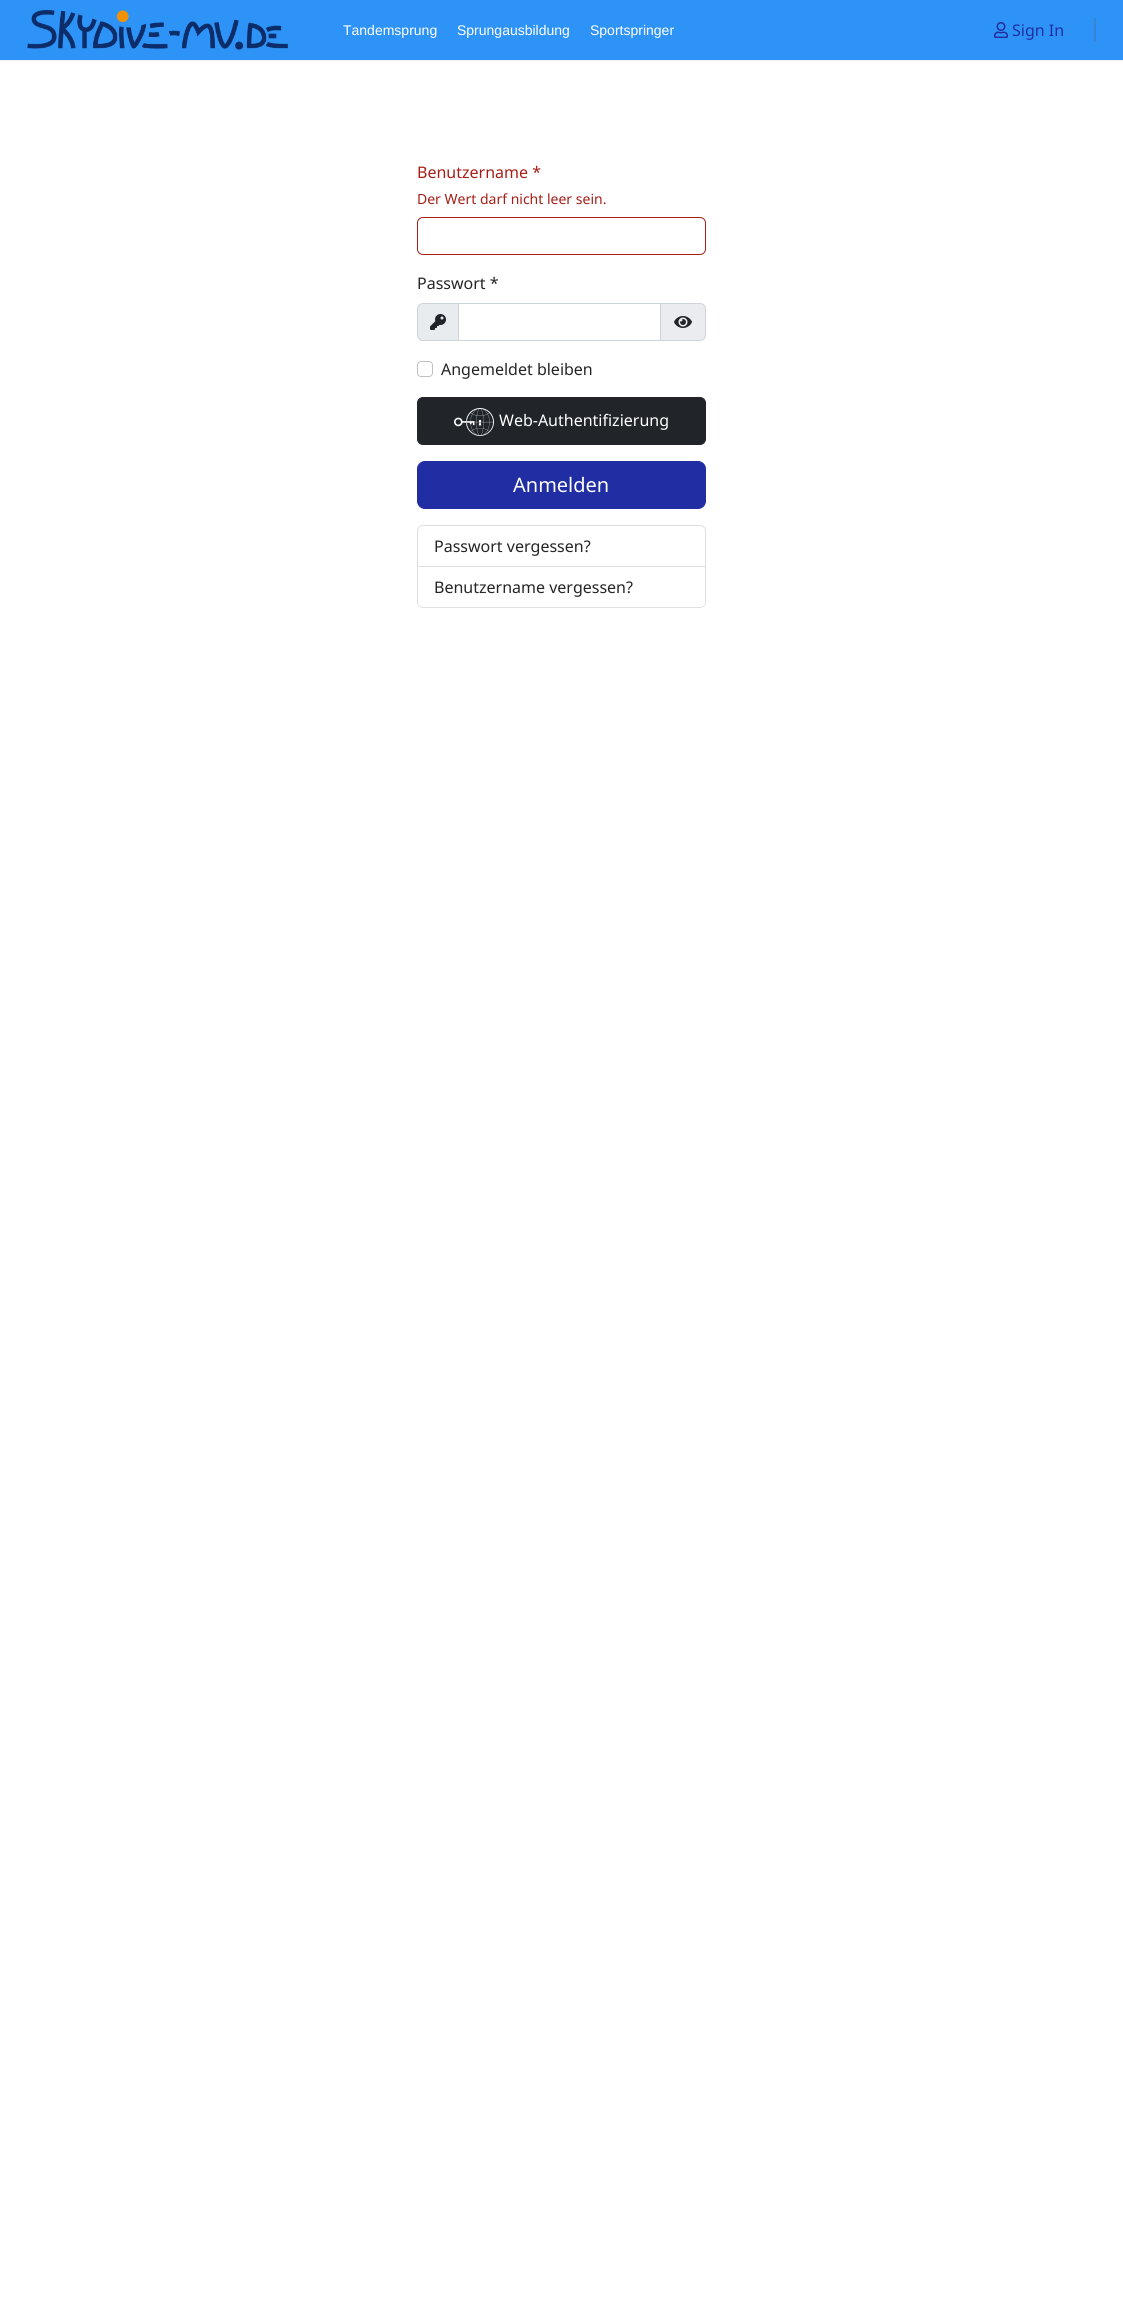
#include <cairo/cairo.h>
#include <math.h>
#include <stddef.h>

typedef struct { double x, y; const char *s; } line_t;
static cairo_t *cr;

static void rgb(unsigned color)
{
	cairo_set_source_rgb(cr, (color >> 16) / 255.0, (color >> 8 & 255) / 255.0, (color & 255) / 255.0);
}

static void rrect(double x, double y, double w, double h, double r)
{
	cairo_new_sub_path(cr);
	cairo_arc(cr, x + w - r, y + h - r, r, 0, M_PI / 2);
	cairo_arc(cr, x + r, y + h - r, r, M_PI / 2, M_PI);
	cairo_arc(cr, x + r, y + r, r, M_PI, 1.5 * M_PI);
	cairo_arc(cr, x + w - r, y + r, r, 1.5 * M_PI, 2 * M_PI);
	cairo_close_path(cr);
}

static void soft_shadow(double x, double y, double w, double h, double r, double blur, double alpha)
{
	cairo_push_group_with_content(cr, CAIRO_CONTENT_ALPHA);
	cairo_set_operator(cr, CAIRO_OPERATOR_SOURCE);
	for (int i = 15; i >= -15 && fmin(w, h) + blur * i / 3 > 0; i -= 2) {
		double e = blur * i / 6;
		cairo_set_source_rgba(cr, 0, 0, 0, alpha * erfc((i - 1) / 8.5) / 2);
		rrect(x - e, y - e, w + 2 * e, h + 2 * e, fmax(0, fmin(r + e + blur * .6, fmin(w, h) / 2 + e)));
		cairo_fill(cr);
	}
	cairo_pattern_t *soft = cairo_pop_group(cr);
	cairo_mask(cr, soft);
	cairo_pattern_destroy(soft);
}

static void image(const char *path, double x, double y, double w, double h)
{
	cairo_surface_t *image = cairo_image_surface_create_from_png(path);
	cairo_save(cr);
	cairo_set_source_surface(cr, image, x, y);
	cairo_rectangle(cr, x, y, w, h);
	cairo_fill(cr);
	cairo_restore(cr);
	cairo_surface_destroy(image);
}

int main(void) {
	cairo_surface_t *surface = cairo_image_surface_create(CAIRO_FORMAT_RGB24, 1123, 2322);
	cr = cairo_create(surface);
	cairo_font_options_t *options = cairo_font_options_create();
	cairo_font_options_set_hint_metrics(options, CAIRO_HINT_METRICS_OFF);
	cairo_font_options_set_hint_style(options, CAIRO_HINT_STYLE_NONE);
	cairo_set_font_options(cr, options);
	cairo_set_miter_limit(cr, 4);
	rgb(0xffffff);
	cairo_paint(cr);
	rgb(0x000000);
	soft_shadow(0, 0, 1123, 60, 0, 2, 0.1);
	rgb(0x2e93f7);
	cairo_rectangle(cr, 0, 0, 1123, 60);
	cairo_fill(cr);
	image("img/1.png", 27, 10, 261, 40);
	rgb(0x3586d6);
	cairo_rectangle(cr, 1094, 18, 2, 24);
	cairo_fill(cr);
	image("img/2.png", 994, 22, 14, 16);
	rrect(417.5, 217.5, 288, 37, 5.5);
	rgb(0xa51f18);
	cairo_set_line_width(cr, 1);
	cairo_stroke(cr);
	rgb(0xe9ecef);
	cairo_new_path(cr);
	cairo_move_to(cr, 423, 303.5);
	cairo_line_to(cr, 458.5, 303.5);
	cairo_line_to(cr, 458.5, 340.5);
	cairo_line_to(cr, 423, 340.5);
	cairo_curve_to(cr, 420, 340.5, 417.5, 338, 417.5, 335);
	cairo_line_to(cr, 417.5, 309);
	cairo_curve_to(cr, 417.5, 306, 420, 303.5, 423, 303.5);
	cairo_close_path(cr);
	cairo_fill_preserve(cr);
	rgb(0xced4da);
	cairo_stroke(cr);
	image("img/3.png", 430, 314, 16, 16);
	cairo_rectangle(cr, 458.5, 303.5, 202, 37);
	cairo_stroke(cr);
	rgb(0xeaecef);
	cairo_new_path(cr);
	cairo_move_to(cr, 660.5, 303.5);
	cairo_line_to(cr, 700, 303.5);
	cairo_curve_to(cr, 703, 303.5, 705.5, 306, 705.5, 309);
	cairo_line_to(cr, 705.5, 335);
	cairo_curve_to(cr, 705.5, 338, 703, 340.5, 700, 340.5);
	cairo_line_to(cr, 660.5, 340.5);
	cairo_close_path(cr);
	cairo_fill_preserve(cr);
	rgb(0xced4da);
	cairo_stroke(cr);
	image("img/4.png", 674, 316, 18, 12);
	rrect(417.5, 361.5, 15, 15, 3.5);
	rgb(0xbfbfbf);
	cairo_stroke(cr);
	rgb(0x212529);
	rrect(417.5, 397.5, 288, 47, 5.5);
	cairo_fill_preserve(cr);
	cairo_stroke(cr);
	image("img/5.png", 454, 408, 40, 28);
	rgb(0x212ea3);
	rrect(417.5, 461.5, 288, 47, 7.5);
	cairo_fill_preserve(cr);
	cairo_stroke(cr);
	cairo_new_path(cr);
	cairo_move_to(cr, 423, 525.5);
	cairo_line_to(cr, 700, 525.5);
	cairo_curve_to(cr, 703, 525.5, 705.5, 528, 705.5, 531);
	cairo_line_to(cr, 705.5, 566.5);
	cairo_line_to(cr, 417.5, 566.5);
	cairo_line_to(cr, 417.5, 531);
	cairo_curve_to(cr, 417.5, 528, 420, 525.5, 423, 525.5);
	cairo_close_path(cr);
	rgb(0xdfdfdf);
	cairo_stroke(cr);
	cairo_set_fill_rule(cr, CAIRO_FILL_RULE_EVEN_ODD);
	cairo_new_path(cr);
	cairo_move_to(cr, 417, 567);
	cairo_line_to(cr, 706, 567);
	cairo_line_to(cr, 706, 602);
	cairo_curve_to(cr, 706, 605, 703, 608, 700, 608);
	cairo_line_to(cr, 423, 608);
	cairo_curve_to(cr, 420, 608, 417, 605, 417, 602);
	cairo_close_path(cr);
	cairo_move_to(cr, 418, 567);
	cairo_line_to(cr, 705, 567);
	cairo_line_to(cr, 705, 602);
	cairo_curve_to(cr, 705, 605, 703, 607, 700, 607);
	cairo_line_to(cr, 423, 607);
	cairo_curve_to(cr, 420, 607, 418, 605, 418, 602);
	cairo_close_path(cr);
	cairo_fill(cr);
	cairo_select_font_face(cr, "Liberation Sans", CAIRO_FONT_SLANT_NORMAL, CAIRO_FONT_WEIGHT_NORMAL);
	cairo_set_font_size(cr, 14);
	rgb(0xffffff);
	{
		static const line_t items[] = {
			{343, 35, "Tandemsprung"},
			{457, 35, "Sprungausbildung"},
			{590, 35, "Sportspringer"},
		};
		for (size_t i = 0; i < sizeof items / sizeof *items; i++) {
			cairo_move_to(cr, items[i].x, items[i].y);
			cairo_show_text(cr, items[i].s);
		}
	}
	cairo_select_font_face(cr, "Noto Sans", CAIRO_FONT_SLANT_NORMAL, CAIRO_FONT_WEIGHT_NORMAL);
	cairo_set_font_size(cr, 16);
	rgb(0x212ea3);
	cairo_move_to(cr, 1012, 36);
	cairo_show_text(cr, "Sign In");
	rgb(0xa51f18);
	cairo_move_to(cr, 417, 178);
	cairo_show_text(cr, "Benutzername *");
	cairo_set_font_size(cr, 14);
	cairo_move_to(cr, 417, 204);
	cairo_show_text(cr, "Der Wert darf nicht leer sein.");
	cairo_set_font_size(cr, 16);
	rgb(0x252525);
	cairo_move_to(cr, 417, 289);
	cairo_show_text(cr, "Passwort *");
	cairo_move_to(cr, 441, 375);
	cairo_show_text(cr, "Angemeldet bleiben");
	rgb(0xffffff);
	cairo_move_to(cr, 499, 426);
	cairo_show_text(cr, "Web-Authentifizierung");
	cairo_set_font_size(cr, 20);
	cairo_move_to(cr, 513, 492);
	cairo_show_text(cr, "Anmelden");
	cairo_set_font_size(cr, 16);
	rgb(0x252525);
	cairo_move_to(cr, 434, 552);
	cairo_show_text(cr, "Passwort vergessen?");
	cairo_move_to(cr, 434, 593);
	cairo_show_text(cr, "Benutzername vergessen?");
	cairo_surface_write_to_png(surface, "page.png");
	cairo_font_options_destroy(options);
	cairo_destroy(cr);
	cairo_surface_destroy(surface);
	return 0;
}
